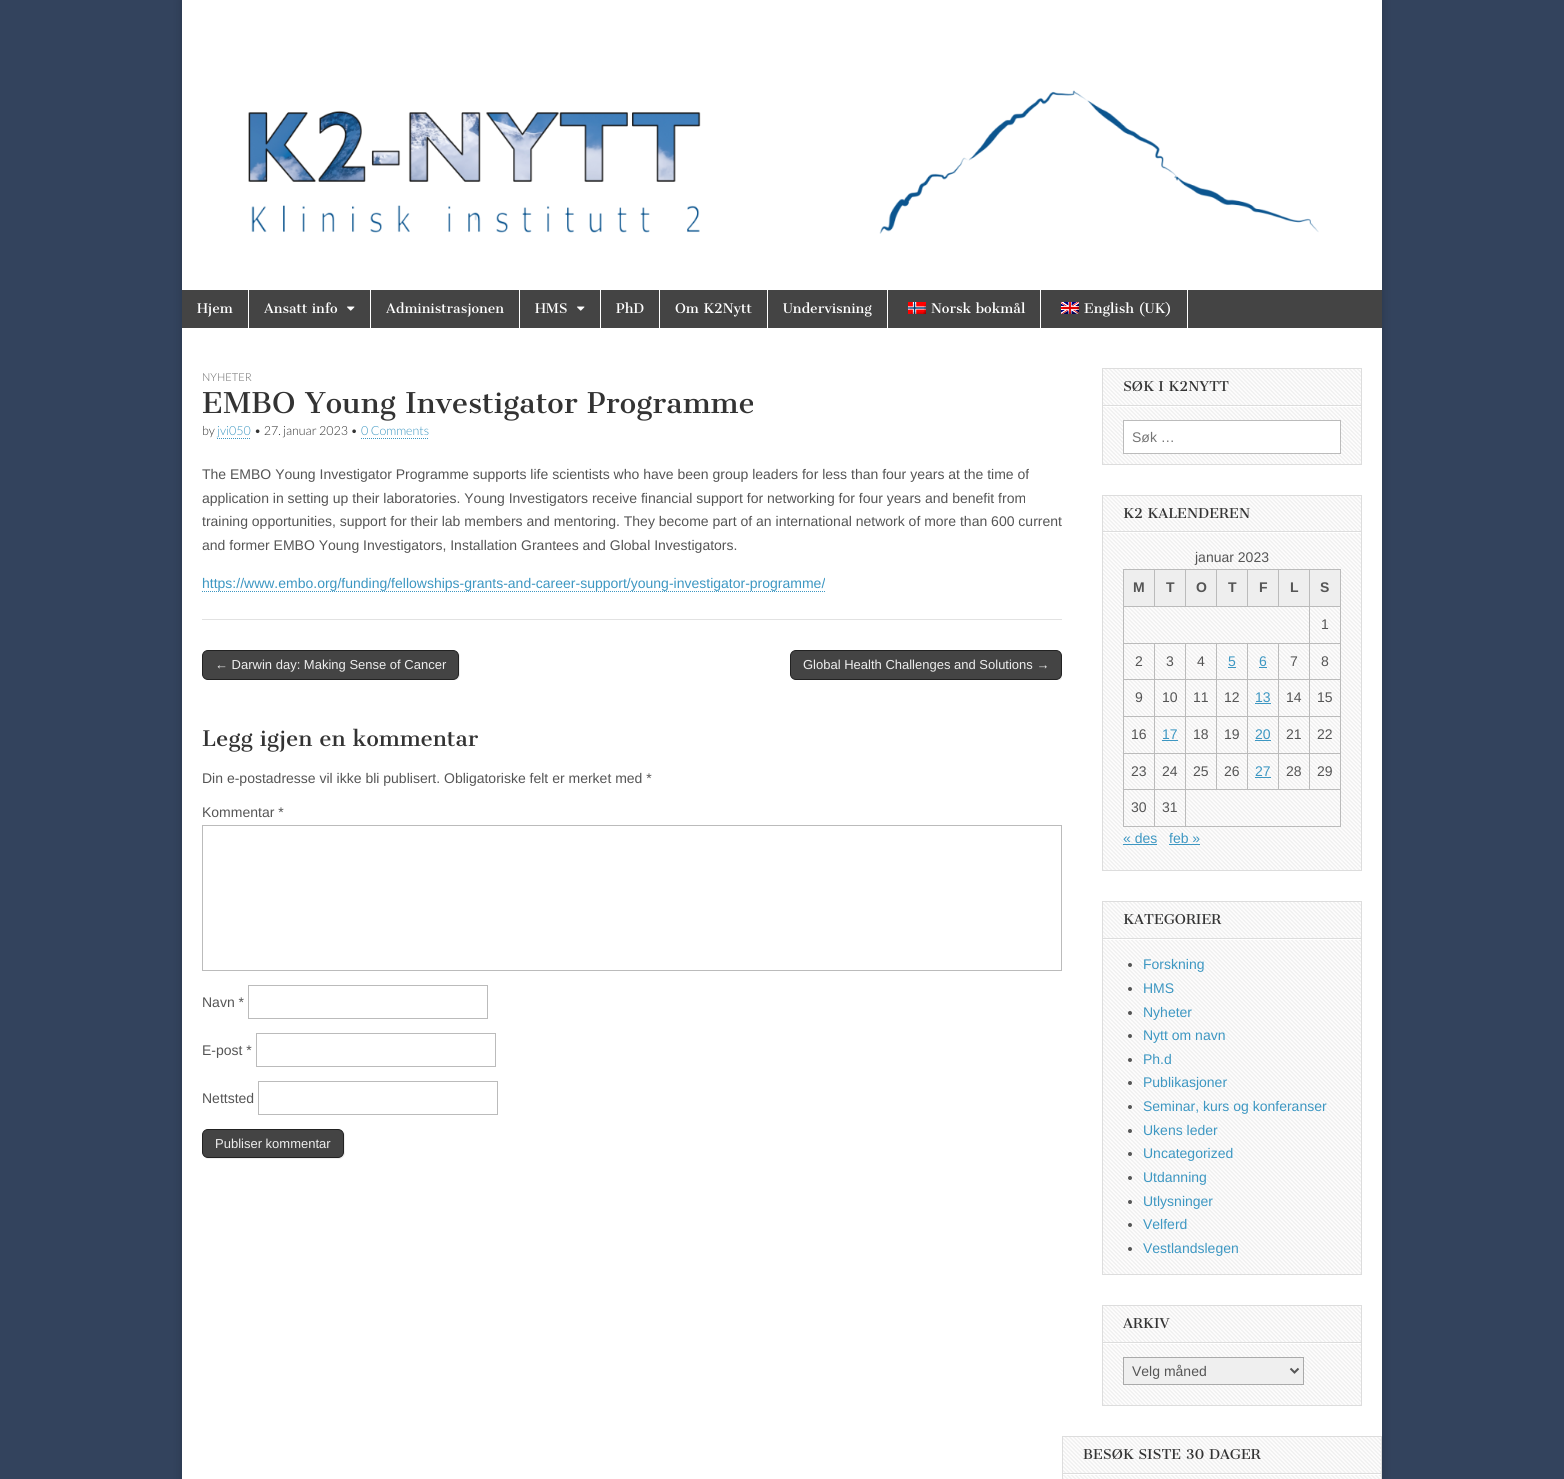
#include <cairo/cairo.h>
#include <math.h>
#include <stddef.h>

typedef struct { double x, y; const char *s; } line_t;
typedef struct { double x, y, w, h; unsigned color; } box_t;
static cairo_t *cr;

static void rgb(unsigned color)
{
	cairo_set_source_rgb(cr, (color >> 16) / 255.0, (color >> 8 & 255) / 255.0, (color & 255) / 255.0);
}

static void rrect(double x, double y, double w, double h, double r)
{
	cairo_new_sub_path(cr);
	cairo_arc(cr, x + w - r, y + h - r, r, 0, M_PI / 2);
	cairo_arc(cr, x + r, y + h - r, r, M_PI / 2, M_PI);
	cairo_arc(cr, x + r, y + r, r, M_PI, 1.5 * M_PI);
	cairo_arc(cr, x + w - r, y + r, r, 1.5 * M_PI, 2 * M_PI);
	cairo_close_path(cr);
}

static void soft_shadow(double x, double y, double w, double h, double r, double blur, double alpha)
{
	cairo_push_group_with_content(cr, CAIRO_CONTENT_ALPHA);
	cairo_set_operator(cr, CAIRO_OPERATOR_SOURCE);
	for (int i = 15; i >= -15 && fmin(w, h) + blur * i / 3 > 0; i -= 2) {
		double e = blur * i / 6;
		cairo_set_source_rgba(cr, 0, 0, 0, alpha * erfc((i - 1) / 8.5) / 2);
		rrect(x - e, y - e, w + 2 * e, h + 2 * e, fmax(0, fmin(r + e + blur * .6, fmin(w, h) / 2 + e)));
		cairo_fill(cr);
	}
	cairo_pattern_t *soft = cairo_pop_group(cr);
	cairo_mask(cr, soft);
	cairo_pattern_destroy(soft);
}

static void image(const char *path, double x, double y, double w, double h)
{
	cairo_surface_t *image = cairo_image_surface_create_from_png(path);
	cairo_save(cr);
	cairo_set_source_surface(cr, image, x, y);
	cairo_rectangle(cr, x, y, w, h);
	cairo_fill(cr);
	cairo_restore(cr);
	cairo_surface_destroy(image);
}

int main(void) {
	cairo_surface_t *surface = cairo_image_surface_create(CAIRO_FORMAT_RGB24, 1564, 1479);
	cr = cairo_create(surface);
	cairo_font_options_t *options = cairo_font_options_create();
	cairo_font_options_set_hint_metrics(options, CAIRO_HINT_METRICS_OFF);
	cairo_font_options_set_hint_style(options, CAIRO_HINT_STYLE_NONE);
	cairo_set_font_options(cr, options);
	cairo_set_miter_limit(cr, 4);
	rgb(0x33435d);
	cairo_paint(cr);
	rgb(0x000000);
	soft_shadow(182, 0, 1200, 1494, 0, 5, 0.2);
	rgb(0xffffff);
	cairo_rectangle(cr, 182, 0, 1200, 1479);
	cairo_fill(cr);
	image("img/1.png", 248, 90, 1071, 144);
	{
		static const box_t items[] = {
			{182, 290, 1200, 38, 0x444444},
			{248, 290, 1, 38, 0xffffff},
			{370, 290, 1, 38, 0xffffff},
		};
		for (size_t i = 0; i < sizeof items / sizeof *items; i++) {
			rgb(items[i].color);
			cairo_rectangle(cr, items[i].x, items[i].y, items[i].w, items[i].h);
			cairo_fill(cr);
		}
	}
	image("img/2.png", 347, 306, 8, 5);
	cairo_rectangle(cr, 519, 290, 1, 38);
	cairo_fill(cr);
	cairo_rectangle(cr, 600, 290, 1, 38);
	cairo_fill(cr);
	image("img/2.png", 577, 306, 8, 5);
	{
		static const box_t items[] = {
			{659, 290, 1, 38, 0xffffff},
			{767, 290, 1, 38, 0xffffff},
			{887, 290, 1, 38, 0xffffff},
			{1040, 290, 1, 38, 0xffffff},
		};
		for (size_t i = 0; i < sizeof items / sizeof *items; i++) {
			rgb(items[i].color);
			cairo_rectangle(cr, items[i].x, items[i].y, items[i].w, items[i].h);
			cairo_fill(cr);
		}
	}
	image("img/3.png", 908, 302, 18, 12);
	cairo_rectangle(cr, 1187, 290, 1, 38);
	cairo_fill(cr);
	image("img/4.png", 1061, 302, 18, 12);
	rgb(0xe2e2e2);
	cairo_rectangle(cr, 202, 619, 860, 1);
	cairo_fill(cr);
	cairo_new_path(cr);
	cairo_move_to(cr, 217, 438.5);
	cairo_line_to(cr, 251, 438.5);
	rgb(0x3d97c2);
	cairo_set_line_width(cr, 1);
	cairo_set_dash(cr, (double[]){1, 1}, 2, 0);
	cairo_stroke(cr);
	cairo_new_path(cr);
	cairo_move_to(cr, 361, 438.5);
	cairo_line_to(cr, 429, 438.5);
	cairo_stroke(cr);
	cairo_new_path(cr);
	cairo_move_to(cr, 202, 591.5);
	cairo_line_to(cr, 825, 591.5);
	cairo_stroke(cr);
	cairo_save(cr);
	cairo_rectangle(cr, 202, 650, 860, 30);
	cairo_clip(cr);
	rgb(0xeeeeee);
	cairo_new_path(cr);
	cairo_move_to(cr, 204, 679);
	cairo_curve_to(cr, 205, 680, 207, 681, 209, 681);
	cairo_line_to(cr, 454, 681);
	cairo_curve_to(cr, 457, 681, 460, 678, 460, 675);
	cairo_line_to(cr, 460, 657);
	cairo_curve_to(cr, 460, 655, 459, 653, 458, 652);
	cairo_curve_to(cr, 459, 653, 459, 655, 459, 656);
	cairo_line_to(cr, 459, 674);
	cairo_curve_to(cr, 459, 677, 456, 680, 453, 680);
	cairo_line_to(cr, 208, 680);
	cairo_curve_to(cr, 207, 680, 205, 680, 204, 679);
	cairo_close_path(cr);
	cairo_fill(cr);
	cairo_restore(cr);
	rgb(0x444444);
	rrect(202.5, 650.5, 256, 29, 5.5);
	cairo_fill_preserve(cr);
	rgb(0x222222);
	cairo_set_dash(cr, NULL, 0, 0);
	cairo_stroke(cr);
	cairo_save(cr);
	cairo_rectangle(cr, 202, 650, 860, 30);
	cairo_clip(cr);
	rgb(0xeeeeee);
	cairo_new_path(cr);
	cairo_move_to(cr, 792, 679);
	cairo_curve_to(cr, 793, 680, 795, 681, 797, 681);
	cairo_line_to(cr, 1057, 681);
	cairo_curve_to(cr, 1060, 681, 1063, 678, 1063, 675);
	cairo_line_to(cr, 1063, 657);
	cairo_curve_to(cr, 1063, 655, 1062, 653, 1061, 652);
	cairo_curve_to(cr, 1062, 653, 1062, 655, 1062, 656);
	cairo_line_to(cr, 1062, 674);
	cairo_curve_to(cr, 1062, 677, 1059, 680, 1056, 680);
	cairo_line_to(cr, 796, 680);
	cairo_curve_to(cr, 795, 680, 793, 680, 792, 679);
	cairo_close_path(cr);
	cairo_fill(cr);
	cairo_restore(cr);
	rgb(0x444444);
	rrect(790.5, 650.5, 271, 29, 5.5);
	cairo_fill_preserve(cr);
	rgb(0x222222);
	cairo_stroke(cr);
	cairo_rectangle(cr, 202.5, 825.5, 859, 145);
	rgb(0xbbbbbb);
	cairo_stroke(cr);
	cairo_rectangle(cr, 248.5, 985.5, 239, 33);
	cairo_stroke(cr);
	cairo_rectangle(cr, 256.5, 1033.5, 239, 33);
	cairo_stroke(cr);
	cairo_rectangle(cr, 258.5, 1081.5, 239, 33);
	cairo_stroke(cr);
	rgb(0xeeeeee);
	cairo_new_path(cr);
	cairo_move_to(cr, 204, 1157);
	cairo_curve_to(cr, 205, 1158, 207, 1159, 209, 1159);
	cairo_line_to(cr, 339, 1159);
	cairo_curve_to(cr, 342, 1159, 345, 1156, 345, 1153);
	cairo_line_to(cr, 345, 1136);
	cairo_curve_to(cr, 345, 1134, 344, 1132, 343, 1131);
	cairo_curve_to(cr, 344, 1132, 344, 1134, 344, 1135);
	cairo_line_to(cr, 344, 1152);
	cairo_curve_to(cr, 344, 1155, 341, 1158, 338, 1158);
	cairo_line_to(cr, 208, 1158);
	cairo_curve_to(cr, 207, 1158, 205, 1158, 204, 1157);
	cairo_close_path(cr);
	cairo_fill(cr);
	rgb(0x444444);
	rrect(202.5, 1129.5, 141, 28, 5.5);
	cairo_fill_preserve(cr);
	rgb(0x222222);
	cairo_stroke(cr);
	image("img/5.png", 1103, 369, 258, 95);
	cairo_rectangle(cr, 1102.5, 368.5, 259, 96);
	rgb(0xdddddd);
	cairo_stroke(cr);
	rgb(0xffffff);
	cairo_rectangle(cr, 1103, 406, 258, 1);
	cairo_fill(cr);
	rgb(0xdddddd);
	cairo_rectangle(cr, 1103, 405, 258, 1);
	cairo_fill(cr);
	rgb(0xffffff);
	cairo_rectangle(cr, 1123.5, 420.5, 217, 33);
	cairo_fill_preserve(cr);
	rgb(0xbbbbbb);
	cairo_stroke(cr);
	image("img/6.png", 1103, 496, 258, 374);
	cairo_rectangle(cr, 1102.5, 495.5, 259, 375);
	rgb(0xdddddd);
	cairo_stroke(cr);
	{
		static const box_t items[] = {
			{1103, 532, 258, 1, 0xffffff},
			{1103, 531, 258, 1, 0xdddddd},
			{1124, 570, 30, 36, 0xeeeeee},
			{1309, 569, 32, 1, 0xbbbbbb},
			{1309, 606, 32, 1, 0xbbbbbb},
			{1309, 643, 32, 1, 0xbbbbbb},
			{1309, 679, 32, 1, 0xbbbbbb},
			{1309, 716, 32, 1, 0xbbbbbb},
			{1309, 753, 32, 1, 0xbbbbbb},
			{1185, 789, 156, 1, 0xbbbbbb},
			{1309, 753, 1, 37, 0xbbbbbb},
			{1278, 753, 32, 1, 0xbbbbbb},
			{1309, 716, 1, 38, 0xbbbbbb},
			{1278, 716, 32, 1, 0xbbbbbb},
			{1309, 679, 1, 38, 0xbbbbbb},
			{1278, 679, 32, 1, 0xbbbbbb},
			{1309, 643, 1, 37, 0xbbbbbb},
			{1278, 643, 32, 1, 0xbbbbbb},
			{1309, 606, 1, 38, 0xbbbbbb},
			{1123, 606, 187, 1, 0xbbbbbb},
			{1309, 569, 1, 38, 0xbbbbbb},
			{1278, 569, 32, 1, 0xbbbbbb},
			{1278, 569, 1, 38, 0xbbbbbb},
			{1247, 569, 32, 1, 0xbbbbbb},
			{1247, 569, 1, 38, 0xbbbbbb},
			{1216, 569, 32, 1, 0xbbbbbb},
			{1216, 569, 1, 38, 0xbbbbbb},
			{1185, 569, 32, 1, 0xbbbbbb},
			{1185, 569, 1, 38, 0xbbbbbb},
			{1154, 569, 32, 1, 0xbbbbbb},
			{1154, 569, 1, 38, 0xbbbbbb},
			{1123, 569, 32, 1, 0xbbbbbb},
			{1278, 753, 1, 37, 0xbbbbbb},
			{1247, 753, 32, 1, 0xbbbbbb},
			{1278, 716, 1, 38, 0xbbbbbb},
			{1247, 716, 32, 1, 0xbbbbbb},
			{1278, 679, 1, 38, 0xbbbbbb},
			{1247, 679, 32, 1, 0xbbbbbb},
			{1278, 643, 1, 37, 0xbbbbbb},
			{1247, 643, 32, 1, 0xbbbbbb},
			{1247, 753, 1, 37, 0xbbbbbb},
			{1216, 753, 32, 1, 0xbbbbbb},
			{1247, 716, 1, 38, 0xbbbbbb},
			{1216, 716, 32, 1, 0xbbbbbb},
			{1247, 679, 1, 38, 0xbbbbbb},
			{1216, 679, 32, 1, 0xbbbbbb},
			{1247, 643, 1, 37, 0xbbbbbb},
			{1216, 643, 32, 1, 0xbbbbbb},
			{1216, 753, 1, 37, 0xbbbbbb},
			{1185, 753, 32, 1, 0xbbbbbb},
			{1216, 716, 1, 38, 0xbbbbbb},
			{1185, 716, 32, 1, 0xbbbbbb},
			{1216, 679, 1, 38, 0xbbbbbb},
			{1185, 679, 32, 1, 0xbbbbbb},
			{1216, 643, 1, 37, 0xbbbbbb},
			{1185, 643, 32, 1, 0xbbbbbb},
			{1340, 789, 1, 38, 0xbbbbbb},
			{1185, 826, 156, 1, 0xbbbbbb},
			{1185, 789, 1, 38, 0xbbbbbb},
			{1154, 789, 32, 1, 0xbbbbbb},
			{1185, 753, 1, 37, 0xbbbbbb},
			{1154, 753, 32, 1, 0xbbbbbb},
			{1185, 716, 1, 38, 0xbbbbbb},
			{1154, 716, 32, 1, 0xbbbbbb},
			{1185, 679, 1, 38, 0xbbbbbb},
			{1154, 679, 32, 1, 0xbbbbbb},
			{1185, 643, 1, 37, 0xbbbbbb},
			{1154, 643, 32, 1, 0xbbbbbb},
			{1154, 826, 32, 1, 0xbbbbbb},
			{1154, 789, 1, 38, 0xbbbbbb},
			{1123, 789, 32, 1, 0xbbbbbb},
			{1154, 753, 1, 37, 0xbbbbbb},
			{1123, 753, 32, 1, 0xbbbbbb},
			{1154, 716, 1, 38, 0xbbbbbb},
			{1123, 716, 32, 1, 0xbbbbbb},
			{1154, 679, 1, 38, 0xbbbbbb},
			{1123, 679, 32, 1, 0xbbbbbb},
			{1154, 643, 1, 37, 0xbbbbbb},
			{1123, 643, 32, 1, 0xbbbbbb},
			{1123, 826, 32, 1, 0xbbbbbb},
			{1123, 789, 1, 38, 0xbbbbbb},
			{1123, 753, 1, 37, 0xbbbbbb},
			{1123, 716, 1, 38, 0xbbbbbb},
			{1123, 679, 1, 38, 0xbbbbbb},
			{1123, 643, 1, 37, 0xbbbbbb},
			{1123, 606, 1, 38, 0xbbbbbb},
			{1123, 569, 1, 38, 0xbbbbbb},
			{1155, 570, 30, 36, 0xeeeeee},
			{1186, 570, 30, 36, 0xeeeeee},
			{1217, 570, 30, 36, 0xeeeeee},
			{1248, 570, 30, 36, 0xeeeeee},
			{1279, 570, 30, 36, 0xeeeeee},
			{1310, 570, 30, 36, 0xeeeeee},
			{1340, 753, 1, 37, 0xbbbbbb},
			{1340, 716, 1, 38, 0xbbbbbb},
			{1340, 679, 1, 38, 0xbbbbbb},
			{1340, 643, 1, 37, 0xbbbbbb},
			{1340, 606, 1, 38, 0xbbbbbb},
			{1340, 569, 1, 38, 0xbbbbbb},
			{1228, 667, 8, 1, 0x3d97c2},
			{1259, 667, 8, 1, 0x3d97c2},
			{1255, 703, 16, 1, 0x3d97c2},
			{1162, 740, 16, 1, 0x3d97c2},
			{1255, 740, 16, 1, 0x3d97c2},
			{1255, 777, 16, 1, 0x3d97c2},
			{1123, 844, 34, 1, 0x3d97c2},
			{1169, 844, 31, 1, 0x3d97c2},
		};
		for (size_t i = 0; i < sizeof items / sizeof *items; i++) {
			rgb(items[i].color);
			cairo_rectangle(cr, items[i].x, items[i].y, items[i].w, items[i].h);
			cairo_fill(cr);
		}
	}
	image("img/7.png", 1103, 902, 258, 372);
	cairo_rectangle(cr, 1102.5, 901.5, 259, 373);
	rgb(0xdddddd);
	cairo_stroke(cr);
	rgb(0xffffff);
	cairo_rectangle(cr, 1103, 939, 258, 1);
	cairo_fill(cr);
	rgb(0xdddddd);
	cairo_rectangle(cr, 1103, 938, 258, 1);
	cairo_fill(cr);
	rgb(0x555555);
	cairo_arc(cr, 1130, 965, 2, 0, 2 * M_PI);
	cairo_fill(cr);
	cairo_arc(cr, 1130, 989, 2, 0, 2 * M_PI);
	cairo_fill(cr);
	cairo_arc(cr, 1130, 1013, 2, 0, 2 * M_PI);
	cairo_fill(cr);
	cairo_arc(cr, 1130, 1036, 2, 0, 2 * M_PI);
	cairo_fill(cr);
	cairo_arc(cr, 1130, 1060, 2, 0, 2 * M_PI);
	cairo_fill(cr);
	cairo_arc(cr, 1130, 1083, 2, 0, 2 * M_PI);
	cairo_fill(cr);
	cairo_arc(cr, 1130, 1107, 2, 0, 2 * M_PI);
	cairo_fill(cr);
	cairo_arc(cr, 1130, 1131, 2, 0, 2 * M_PI);
	cairo_fill(cr);
	cairo_arc(cr, 1130, 1154, 2, 0, 2 * M_PI);
	cairo_fill(cr);
	cairo_arc(cr, 1130, 1178, 2, 0, 2 * M_PI);
	cairo_fill(cr);
	cairo_arc(cr, 1130, 1202, 2, 0, 2 * M_PI);
	cairo_fill(cr);
	cairo_arc(cr, 1130, 1225, 2, 0, 2 * M_PI);
	cairo_fill(cr);
	cairo_arc(cr, 1130, 1249, 2, 0, 2 * M_PI);
	cairo_fill(cr);
	image("img/8.png", 1103, 1306, 258, 99);
	cairo_rectangle(cr, 1102.5, 1305.5, 259, 100);
	rgb(0xdddddd);
	cairo_stroke(cr);
	rgb(0xffffff);
	cairo_rectangle(cr, 1103, 1343, 258, 1);
	cairo_fill(cr);
	rgb(0xdddddd);
	cairo_rectangle(cr, 1103, 1342, 258, 1);
	cairo_fill(cr);
	rgb(0xefefef);
	cairo_rectangle(cr, 1123.5, 1357.5, 180, 27);
	cairo_fill_preserve(cr);
	rgb(0xaaaaaa);
	cairo_stroke(cr);
	cairo_new_path(cr);
	cairo_move_to(cr, 1290.5, 1368.5);
	cairo_line_to(cr, 1294.5, 1372.5);
	cairo_line_to(cr, 1298.5, 1368.5);
	rgb(0x555555);
	cairo_set_line_width(cr, 2);
	cairo_stroke(cr);
	image("img/9.png", 1063, 1437, 318, 42);
	cairo_rectangle(cr, 1062.5, 1436.5, 319, 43);
	rgb(0xdddddd);
	cairo_set_line_width(cr, 1);
	cairo_stroke(cr);
	rgb(0xffffff);
	cairo_rectangle(cr, 1063, 1474, 318, 1);
	cairo_fill(cr);
	rgb(0xdddddd);
	cairo_rectangle(cr, 1063, 1473, 318, 1);
	cairo_fill(cr);
	cairo_select_font_face(cr, "Cantata One", CAIRO_FONT_SLANT_NORMAL, CAIRO_FONT_WEIGHT_NORMAL);
	cairo_set_font_size(cr, 13);
	rgb(0xffffff);
	{
		static const line_t items[] = {
			{197, 313, "Hjem"},
			{264, 313, "Ansatt info"},
			{386, 313, "Administrasjonen"},
			{535, 313, "HMS"},
			{616, 313, "PhD"},
			{675, 313, "Om K2Nytt"},
			{783, 313, "Undervisning"},
			{931, 313, "Norsk bokmål"},
			{1084, 313, "English (UK)"},
		};
		for (size_t i = 0; i < sizeof items / sizeof *items; i++) {
			cairo_move_to(cr, items[i].x, items[i].y);
			cairo_show_text(cr, items[i].s);
		}
	}
	cairo_select_font_face(cr, "Lato Light", CAIRO_FONT_SLANT_NORMAL, CAIRO_FONT_WEIGHT_NORMAL);
	cairo_set_font_size(cr, 11);
	rgb(0x666666);
	cairo_move_to(cr, 202, 381);
	cairo_show_text(cr, "NYHETER");
	cairo_select_font_face(cr, "Cantata One", CAIRO_FONT_SLANT_NORMAL, CAIRO_FONT_WEIGHT_NORMAL);
	cairo_set_font_size(cr, 28);
	rgb(0x333333);
	cairo_move_to(cr, 202, 413);
	cairo_show_text(cr, "EMBO Young Investigator Programme");
	cairo_select_font_face(cr, "Lato Light", CAIRO_FONT_SLANT_NORMAL, CAIRO_FONT_WEIGHT_NORMAL);
	cairo_set_font_size(cr, 12.5);
	cairo_move_to(cr, 202, 435);
	cairo_show_text(cr, "by");
	rgb(0x3d97c2);
	cairo_move_to(cr, 217, 435);
	cairo_show_text(cr, "jvi050");
	rgb(0x333333);
	cairo_move_to(cr, 254, 435);
	cairo_show_text(cr, "• 27. januar 2023 •");
	rgb(0x3d97c2);
	cairo_move_to(cr, 361, 435);
	cairo_show_text(cr, "0 Comments");
	cairo_select_font_face(cr, "Liberation Sans", CAIRO_FONT_SLANT_NORMAL, CAIRO_FONT_WEIGHT_NORMAL);
	cairo_set_font_size(cr, 14);
	rgb(0x555555);
	{
		static const line_t items[] = {
			{202, 479, "The EMBO Young Investigator Programme supports life scientists who have been group leaders for less than four years at the time of"},
			{202, 503, "application in setting up their laboratories. Young Investigators receive financial support for networking for four years and benefit from"},
			{202, 526, "training opportunities, support for their lab members and mentoring. They become part of an international network of more than 600 current"},
			{202, 550, "and former EMBO Young Investigators, Installation Grantees and Global Investigators."},
		};
		for (size_t i = 0; i < sizeof items / sizeof *items; i++) {
			cairo_move_to(cr, items[i].x, items[i].y);
			cairo_show_text(cr, items[i].s);
		}
	}
	rgb(0x3d97c2);
	cairo_move_to(cr, 202, 588);
	cairo_show_text(cr, "https://www.embo.org/funding/fellowships-grants-and-career-support/young-investigator-programme/");
	cairo_set_font_size(cr, 13);
	rgb(0xeeeeee);
	cairo_move_to(cr, 215, 669);
	cairo_show_text(cr, "← Darwin day: Making Sense of Cancer");
	cairo_move_to(cr, 803, 669);
	cairo_show_text(cr, "Global Health Challenges and Solutions →");
	cairo_select_font_face(cr, "Cantata One", CAIRO_FONT_SLANT_NORMAL, CAIRO_FONT_WEIGHT_NORMAL);
	cairo_set_font_size(cr, 21);
	rgb(0x333333);
	cairo_move_to(cr, 202, 746);
	cairo_show_text(cr, "Legg igjen en kommentar");
	cairo_select_font_face(cr, "Liberation Sans", CAIRO_FONT_SLANT_NORMAL, CAIRO_FONT_WEIGHT_NORMAL);
	cairo_set_font_size(cr, 14);
	rgb(0x555555);
	{
		static const line_t items[] = {
			{202, 783, "Din e-postadresse vil ikke bli publisert. Obligatoriske felt er merket med *"},
			{202, 817, "Kommentar *"},
			{202, 1007, "Navn *"},
			{202, 1055, "E-post *"},
			{202, 1103, "Nettsted"},
		};
		for (size_t i = 0; i < sizeof items / sizeof *items; i++) {
			cairo_move_to(cr, items[i].x, items[i].y);
			cairo_show_text(cr, items[i].s);
		}
	}
	cairo_set_font_size(cr, 13);
	rgb(0xeeeeee);
	cairo_move_to(cr, 215, 1148);
	cairo_show_text(cr, "Publiser kommentar");
	cairo_select_font_face(cr, "Cantata One", CAIRO_FONT_SLANT_NORMAL, CAIRO_FONT_WEIGHT_NORMAL);
	cairo_set_font_size(cr, 13.25);
	rgb(0x333333);
	cairo_move_to(cr, 1123, 391);
	cairo_show_text(cr, "SØK I K2NYTT");
	cairo_select_font_face(cr, "Liberation Sans", CAIRO_FONT_SLANT_NORMAL, CAIRO_FONT_WEIGHT_NORMAL);
	cairo_set_font_size(cr, 14);
	rgb(0x757575);
	cairo_move_to(cr, 1132, 442);
	cairo_show_text(cr, "Søk …");
	cairo_select_font_face(cr, "Cantata One", CAIRO_FONT_SLANT_NORMAL, CAIRO_FONT_WEIGHT_NORMAL);
	cairo_set_font_size(cr, 13.25);
	rgb(0x333333);
	cairo_move_to(cr, 1123, 518);
	cairo_show_text(cr, "K2 KALENDEREN");
	cairo_select_font_face(cr, "Liberation Sans", CAIRO_FONT_SLANT_NORMAL, CAIRO_FONT_WEIGHT_NORMAL);
	cairo_set_font_size(cr, 14);
	rgb(0x555555);
	cairo_move_to(cr, 1195, 562);
	cairo_show_text(cr, "januar 2023");
	cairo_select_font_face(cr, "Liberation Sans", CAIRO_FONT_SLANT_NORMAL, CAIRO_FONT_WEIGHT_BOLD);
	{
		static const line_t items[] = {
			{1133, 592, "M"},
			{1166, 592, "T"},
			{1196, 592, "O"},
			{1228, 592, "T"},
			{1259, 592, "F"},
			{1290, 592, "L"},
			{1320, 592, "S"},
		};
		for (size_t i = 0; i < sizeof items / sizeof *items; i++) {
			cairo_move_to(cr, items[i].x, items[i].y);
			cairo_show_text(cr, items[i].s);
		}
	}
	cairo_select_font_face(cr, "Liberation Sans", CAIRO_FONT_SLANT_NORMAL, CAIRO_FONT_WEIGHT_NORMAL);
	{
		static const line_t items[] = {
			{1321, 629, "1"},
			{1135, 666, "2"},
			{1166, 666, "3"},
			{1197, 666, "4"},
		};
		for (size_t i = 0; i < sizeof items / sizeof *items; i++) {
			cairo_move_to(cr, items[i].x, items[i].y);
			cairo_show_text(cr, items[i].s);
		}
	}
	rgb(0x3d97c2);
	cairo_move_to(cr, 1228, 666);
	cairo_show_text(cr, "5");
	cairo_move_to(cr, 1259, 666);
	cairo_show_text(cr, "6");
	rgb(0x555555);
	{
		static const line_t items[] = {
			{1290, 666, "7"},
			{1321, 666, "8"},
			{1135, 702, "9"},
			{1162, 702, "10"},
			{1193, 702, "11"},
			{1224, 702, "12"},
		};
		for (size_t i = 0; i < sizeof items / sizeof *items; i++) {
			cairo_move_to(cr, items[i].x, items[i].y);
			cairo_show_text(cr, items[i].s);
		}
	}
	rgb(0x3d97c2);
	cairo_move_to(cr, 1255, 702);
	cairo_show_text(cr, "13");
	rgb(0x555555);
	{
		static const line_t items[] = {
			{1286, 702, "14"},
			{1317, 702, "15"},
			{1131, 739, "16"},
		};
		for (size_t i = 0; i < sizeof items / sizeof *items; i++) {
			cairo_move_to(cr, items[i].x, items[i].y);
			cairo_show_text(cr, items[i].s);
		}
	}
	rgb(0x3d97c2);
	cairo_move_to(cr, 1162, 739);
	cairo_show_text(cr, "17");
	rgb(0x555555);
	cairo_move_to(cr, 1193, 739);
	cairo_show_text(cr, "18");
	cairo_move_to(cr, 1224, 739);
	cairo_show_text(cr, "19");
	rgb(0x3d97c2);
	cairo_move_to(cr, 1255, 739);
	cairo_show_text(cr, "20");
	rgb(0x555555);
	{
		static const line_t items[] = {
			{1286, 739, "21"},
			{1317, 739, "22"},
			{1131, 776, "23"},
			{1162, 776, "24"},
			{1193, 776, "25"},
			{1224, 776, "26"},
		};
		for (size_t i = 0; i < sizeof items / sizeof *items; i++) {
			cairo_move_to(cr, items[i].x, items[i].y);
			cairo_show_text(cr, items[i].s);
		}
	}
	rgb(0x3d97c2);
	cairo_move_to(cr, 1255, 776);
	cairo_show_text(cr, "27");
	rgb(0x555555);
	{
		static const line_t items[] = {
			{1286, 776, "28"},
			{1317, 776, "29"},
			{1131, 812, "30"},
			{1162, 812, "31"},
		};
		for (size_t i = 0; i < sizeof items / sizeof *items; i++) {
			cairo_move_to(cr, items[i].x, items[i].y);
			cairo_show_text(cr, items[i].s);
		}
	}
	rgb(0x3d97c2);
	cairo_move_to(cr, 1123, 843);
	cairo_show_text(cr, "« des");
	cairo_move_to(cr, 1169, 843);
	cairo_show_text(cr, "feb »");
	cairo_select_font_face(cr, "Cantata One", CAIRO_FONT_SLANT_NORMAL, CAIRO_FONT_WEIGHT_NORMAL);
	cairo_set_font_size(cr, 13.25);
	rgb(0x333333);
	cairo_move_to(cr, 1123, 924);
	cairo_show_text(cr, "KATEGORIER");
	cairo_select_font_face(cr, "Liberation Sans", CAIRO_FONT_SLANT_NORMAL, CAIRO_FONT_WEIGHT_NORMAL);
	cairo_set_font_size(cr, 14);
	rgb(0x3d97c2);
	{
		static const line_t items[] = {
			{1143, 969, "Forskning"},
			{1143, 993, "HMS"},
			{1143, 1017, "Nyheter"},
			{1143, 1040, "Nytt om navn"},
			{1143, 1064, "Ph.d"},
			{1143, 1087, "Publikasjoner"},
			{1143, 1111, "Seminar, kurs og konferanser"},
			{1143, 1135, "Ukens leder"},
			{1143, 1158, "Uncategorized"},
			{1143, 1182, "Utdanning"},
			{1143, 1206, "Utlysninger"},
			{1143, 1229, "Velferd"},
			{1143, 1253, "Vestlandslegen"},
		};
		for (size_t i = 0; i < sizeof items / sizeof *items; i++) {
			cairo_move_to(cr, items[i].x, items[i].y);
			cairo_show_text(cr, items[i].s);
		}
	}
	cairo_select_font_face(cr, "Cantata One", CAIRO_FONT_SLANT_NORMAL, CAIRO_FONT_WEIGHT_NORMAL);
	cairo_set_font_size(cr, 13.25);
	rgb(0x333333);
	cairo_move_to(cr, 1123, 1328);
	cairo_show_text(cr, "ARKIV");
	cairo_select_font_face(cr, "Liberation Sans", CAIRO_FONT_SLANT_NORMAL, CAIRO_FONT_WEIGHT_NORMAL);
	cairo_set_font_size(cr, 14);
	rgb(0x555555);
	cairo_move_to(cr, 1132, 1376);
	cairo_show_text(cr, "Velg måned");
	cairo_select_font_face(cr, "Cantata One", CAIRO_FONT_SLANT_NORMAL, CAIRO_FONT_WEIGHT_NORMAL);
	cairo_set_font_size(cr, 13.25);
	rgb(0x333333);
	cairo_move_to(cr, 1083, 1459);
	cairo_show_text(cr, "BESØK SISTE 30 DAGER");
	cairo_surface_write_to_png(surface, "page.png");
	cairo_font_options_destroy(options);
	cairo_destroy(cr);
	cairo_surface_destroy(surface);
	return 0;
}
